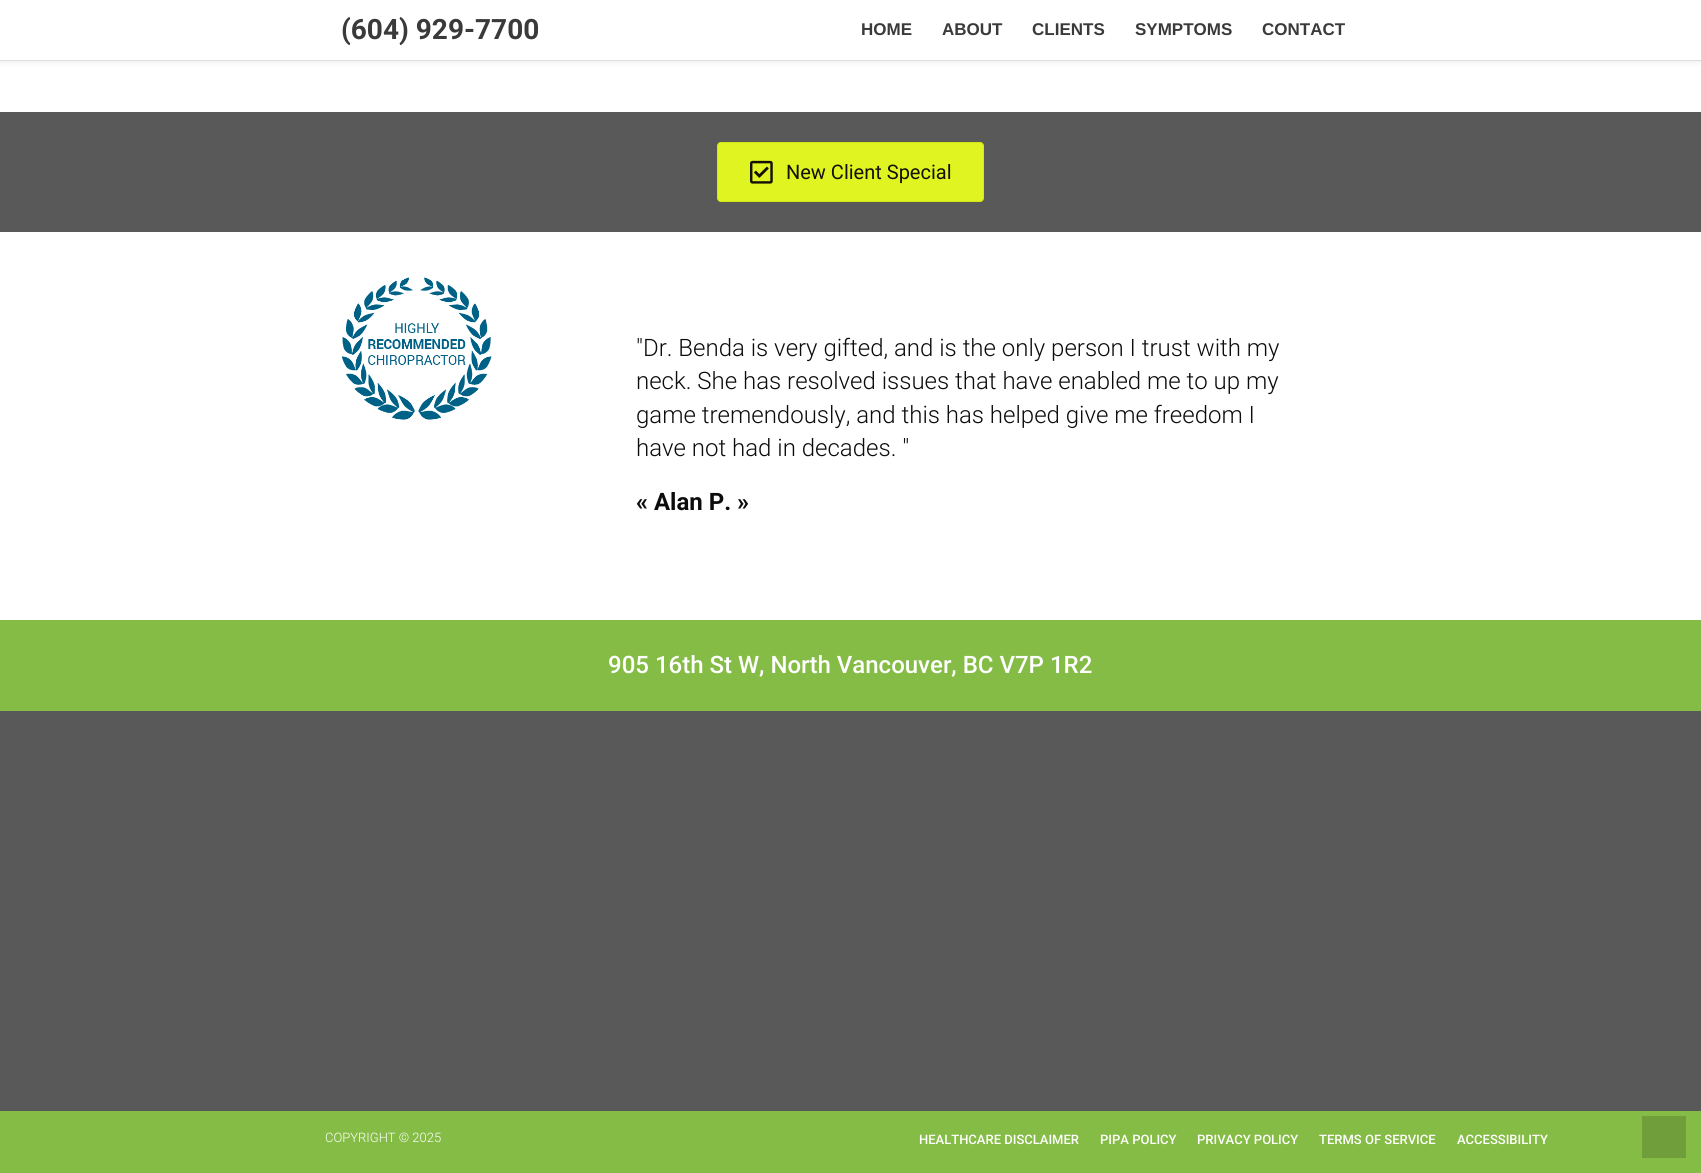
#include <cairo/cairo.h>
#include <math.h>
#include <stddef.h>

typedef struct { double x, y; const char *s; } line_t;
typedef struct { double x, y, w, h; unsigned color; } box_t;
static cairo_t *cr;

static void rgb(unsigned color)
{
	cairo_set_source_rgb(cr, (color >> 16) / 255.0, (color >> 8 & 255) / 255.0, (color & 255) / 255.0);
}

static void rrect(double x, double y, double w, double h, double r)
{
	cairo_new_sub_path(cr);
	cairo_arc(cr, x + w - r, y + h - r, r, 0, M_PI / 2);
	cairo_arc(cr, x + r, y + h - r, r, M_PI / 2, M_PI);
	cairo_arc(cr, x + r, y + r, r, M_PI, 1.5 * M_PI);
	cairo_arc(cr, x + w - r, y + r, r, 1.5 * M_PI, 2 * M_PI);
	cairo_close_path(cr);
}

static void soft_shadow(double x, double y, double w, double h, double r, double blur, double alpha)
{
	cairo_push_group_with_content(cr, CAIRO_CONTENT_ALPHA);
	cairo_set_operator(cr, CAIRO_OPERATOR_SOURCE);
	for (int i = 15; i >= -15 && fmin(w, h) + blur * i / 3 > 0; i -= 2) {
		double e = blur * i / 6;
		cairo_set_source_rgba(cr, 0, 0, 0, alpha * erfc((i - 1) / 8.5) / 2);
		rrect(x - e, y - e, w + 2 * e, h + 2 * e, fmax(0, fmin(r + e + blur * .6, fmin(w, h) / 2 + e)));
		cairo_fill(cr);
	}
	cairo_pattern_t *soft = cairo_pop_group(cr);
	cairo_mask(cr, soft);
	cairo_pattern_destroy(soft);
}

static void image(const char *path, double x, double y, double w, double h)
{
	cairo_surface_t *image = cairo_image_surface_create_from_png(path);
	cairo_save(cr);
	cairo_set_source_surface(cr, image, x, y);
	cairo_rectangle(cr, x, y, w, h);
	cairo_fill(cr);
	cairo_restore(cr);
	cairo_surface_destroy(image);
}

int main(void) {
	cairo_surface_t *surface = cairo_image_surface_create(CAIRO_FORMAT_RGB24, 1701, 1173);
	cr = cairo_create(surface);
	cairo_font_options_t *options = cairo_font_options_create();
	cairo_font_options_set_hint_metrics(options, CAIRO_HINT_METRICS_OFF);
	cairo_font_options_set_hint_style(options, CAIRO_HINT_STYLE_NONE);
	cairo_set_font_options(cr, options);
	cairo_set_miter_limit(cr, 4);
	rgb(0xffffff);
	cairo_paint(cr);
	rgb(0x000000);
	soft_shadow(0, 0, 1701, 61, 0, 3.5, 0.1);
	{
		static const box_t items[] = {
			{0, 0, 1701, 60, 0xffffff},
			{0, 60, 1701, 1, 0xdedede},
			{0, 112, 1701, 120, 0x595959},
		};
		for (size_t i = 0; i < sizeof items / sizeof *items; i++) {
			rgb(items[i].color);
			cairo_rectangle(cr, items[i].x, items[i].y, items[i].w, items[i].h);
			cairo_fill(cr);
		}
	}
	rgb(0xe0f421);
	rrect(717.5, 142.5, 266, 59, 3.5);
	cairo_fill_preserve(cr);
	rgb(0xd4e815);
	cairo_set_line_width(cr, 1);
	cairo_stroke(cr);
	image("img/1.png", 750, 160, 23, 24);
	image("img/2.png", 341, 277, 151, 143);
	{
		static const box_t items[] = {
			{0, 620, 1701, 91, 0x85bc46},
			{0, 711, 1701, 400, 0x595959},
			{0, 1111, 1701, 62, 0x85bc46},
			{1642, 1116, 44, 42, 0x709e3b},
		};
		for (size_t i = 0; i < sizeof items / sizeof *items; i++) {
			rgb(items[i].color);
			cairo_rectangle(cr, items[i].x, items[i].y, items[i].w, items[i].h);
			cairo_fill(cr);
		}
	}
	cairo_select_font_face(cr, "Roboto", CAIRO_FONT_SLANT_NORMAL, CAIRO_FONT_WEIGHT_BOLD);
	cairo_set_font_size(cr, 28);
	rgb(0x3a3a3a);
	cairo_move_to(cr, 341, 39);
	cairo_show_text(cr, "(604) 929-7700");
	cairo_select_font_face(cr, "Liberation Sans", CAIRO_FONT_SLANT_NORMAL, CAIRO_FONT_WEIGHT_BOLD);
	cairo_set_font_size(cr, 17);
	{
		static const line_t items[] = {
			{861, 35, "HOME"},
			{942, 35, "ABOUT"},
			{1032, 35, "CLIENTS"},
			{1135, 35, "SYMPTOMS"},
			{1262, 35, "CONTACT"},
		};
		for (size_t i = 0; i < sizeof items / sizeof *items; i++) {
			cairo_move_to(cr, items[i].x, items[i].y);
			cairo_show_text(cr, items[i].s);
		}
	}
	cairo_select_font_face(cr, "Roboto", CAIRO_FONT_SLANT_NORMAL, CAIRO_FONT_WEIGHT_NORMAL);
	cairo_set_font_size(cr, 20);
	rgb(0x121007);
	cairo_move_to(cr, 786, 179);
	cairo_show_text(cr, "New Client Special");
	cairo_select_font_face(cr, "Roboto Light", CAIRO_FONT_SLANT_NORMAL, CAIRO_FONT_WEIGHT_NORMAL);
	cairo_set_font_size(cr, 24);
	rgb(0x0c0c0c);
	{
		static const line_t items[] = {
			{636, 356, "\"Dr. Benda is very gifted, and is the only person I trust with my"},
			{636, 389, "neck. She has resolved issues that have enabled me to up my"},
			{636, 423, "game tremendously, and this has helped give me freedom I"},
			{636, 456, "have not had in decades. \""},
		};
		for (size_t i = 0; i < sizeof items / sizeof *items; i++) {
			cairo_move_to(cr, items[i].x, items[i].y);
			cairo_show_text(cr, items[i].s);
		}
	}
	cairo_select_font_face(cr, "Roboto", CAIRO_FONT_SLANT_NORMAL, CAIRO_FONT_WEIGHT_BOLD);
	cairo_move_to(cr, 636, 510);
	cairo_show_text(cr, "« Alan P. »");
	cairo_select_font_face(cr, "Roboto Medium", CAIRO_FONT_SLANT_NORMAL, CAIRO_FONT_WEIGHT_NORMAL);
	rgb(0xffffff);
	cairo_move_to(cr, 608, 673);
	cairo_show_text(cr, "905 16th St W, North Vancouver, BC V7P 1R2");
	cairo_select_font_face(cr, "Roboto Light", CAIRO_FONT_SLANT_NORMAL, CAIRO_FONT_WEIGHT_NORMAL);
	cairo_set_font_size(cr, 13);
	cairo_move_to(cr, 325, 1142);
	cairo_show_text(cr, "COPYRIGHT © 2025");
	cairo_select_font_face(cr, "Roboto Medium", CAIRO_FONT_SLANT_NORMAL, CAIRO_FONT_WEIGHT_NORMAL);
	{
		static const line_t items[] = {
			{919, 1144, "HEALTHCARE DISCLAIMER"},
			{1100, 1144, "PIPA POLICY"},
			{1197, 1144, "PRIVACY POLICY"},
			{1319, 1144, "TERMS OF SERVICE"},
			{1457, 1144, "ACCESSIBILITY"},
		};
		for (size_t i = 0; i < sizeof items / sizeof *items; i++) {
			cairo_move_to(cr, items[i].x, items[i].y);
			cairo_show_text(cr, items[i].s);
		}
	}
	cairo_surface_write_to_png(surface, "page.png");
	cairo_font_options_destroy(options);
	cairo_destroy(cr);
	cairo_surface_destroy(surface);
	return 0;
}
